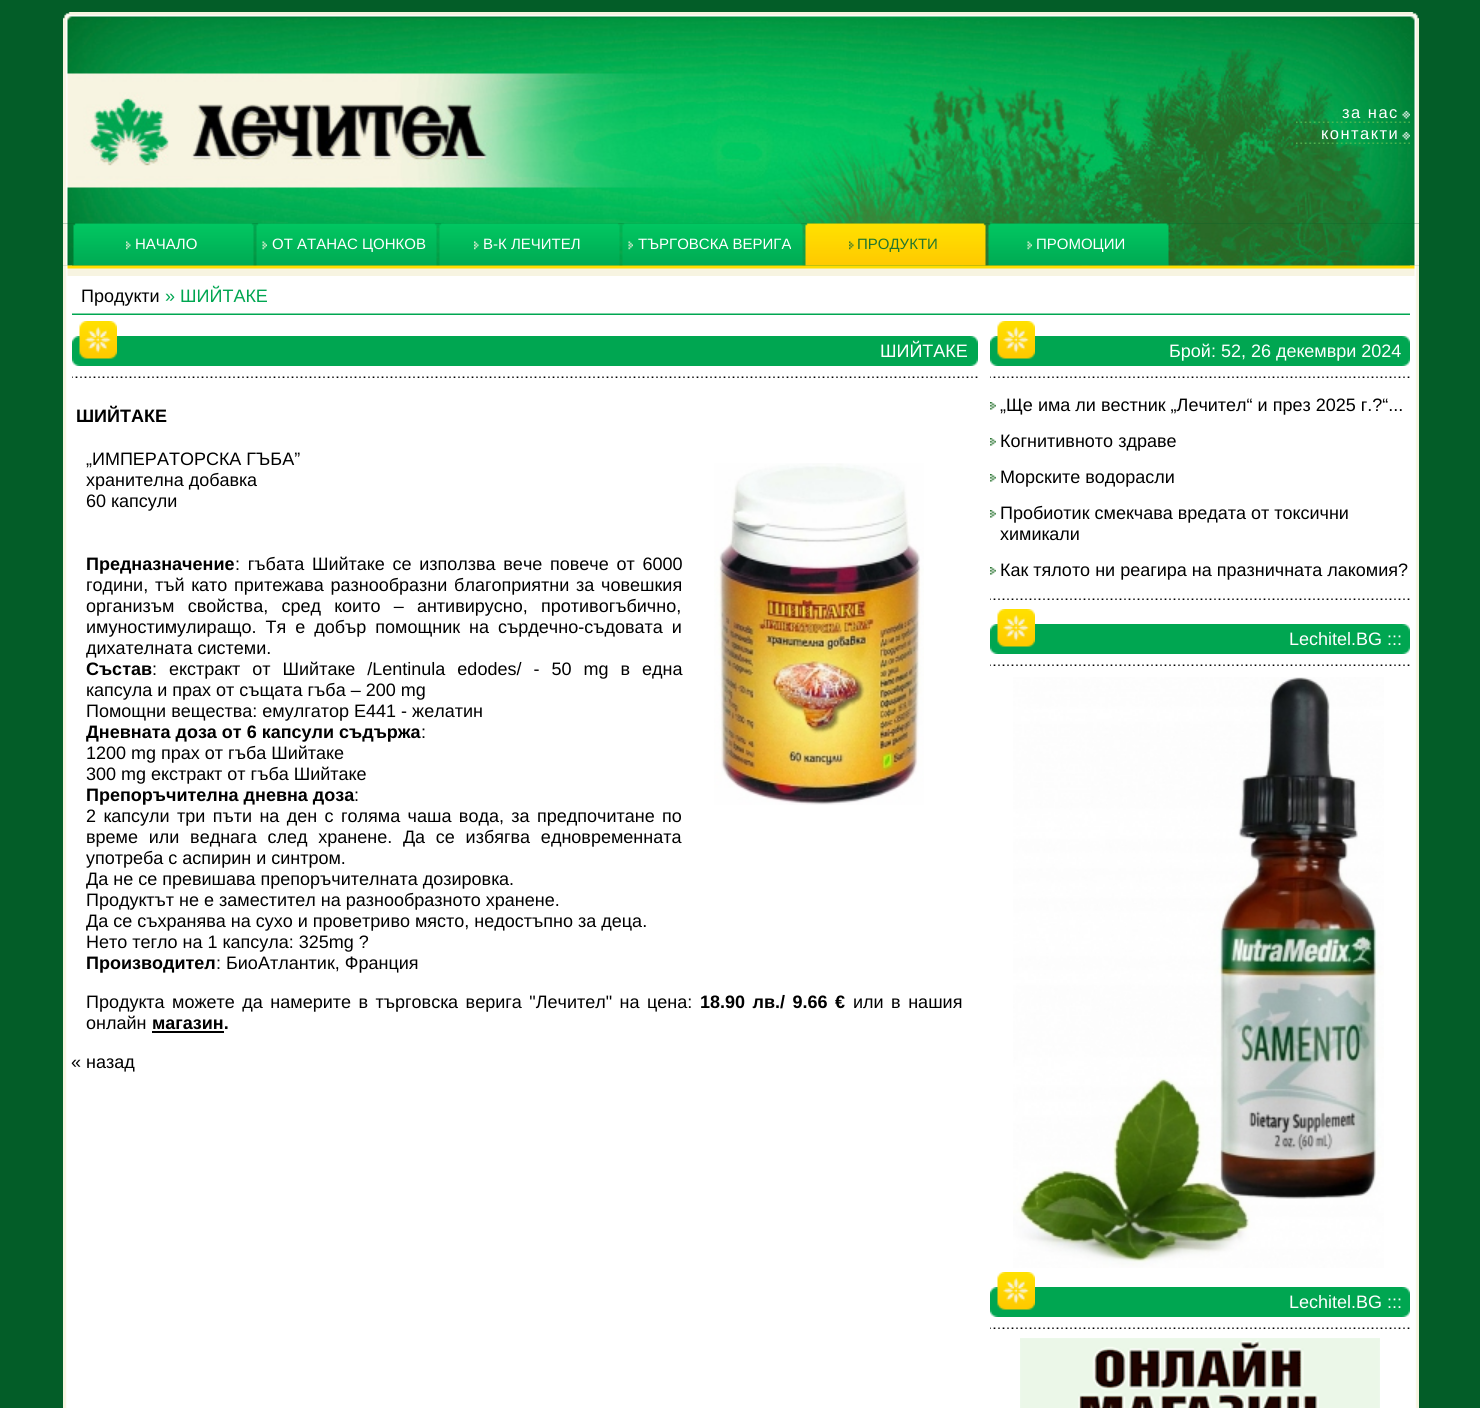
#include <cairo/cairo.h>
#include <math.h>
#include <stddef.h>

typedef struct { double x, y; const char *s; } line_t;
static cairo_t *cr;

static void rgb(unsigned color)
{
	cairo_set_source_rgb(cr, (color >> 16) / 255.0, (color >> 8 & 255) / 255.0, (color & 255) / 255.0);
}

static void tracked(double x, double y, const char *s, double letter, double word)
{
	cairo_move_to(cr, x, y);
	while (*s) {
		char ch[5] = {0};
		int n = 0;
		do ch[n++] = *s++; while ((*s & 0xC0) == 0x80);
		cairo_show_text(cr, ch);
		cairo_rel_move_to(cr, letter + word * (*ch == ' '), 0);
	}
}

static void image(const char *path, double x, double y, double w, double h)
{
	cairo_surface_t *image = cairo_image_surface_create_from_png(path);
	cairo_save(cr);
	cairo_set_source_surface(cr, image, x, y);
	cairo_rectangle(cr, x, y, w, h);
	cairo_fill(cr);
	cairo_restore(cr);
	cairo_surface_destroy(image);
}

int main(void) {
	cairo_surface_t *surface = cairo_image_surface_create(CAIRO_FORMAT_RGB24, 1480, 1408);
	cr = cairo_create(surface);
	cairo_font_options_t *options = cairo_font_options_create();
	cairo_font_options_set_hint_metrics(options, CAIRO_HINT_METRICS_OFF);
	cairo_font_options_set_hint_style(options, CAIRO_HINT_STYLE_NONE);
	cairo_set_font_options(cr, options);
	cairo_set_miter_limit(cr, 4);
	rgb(0x035d28);
	cairo_paint(cr);
	image("img/1.png", 63, 12, 9, 9);
	image("img/2.png", 72, 12, 1338, 9);
	image("img/3.png", 1410, 12, 9, 9);
	image("img/4.png", 63, 21, 9, 203);
	image("img/5.png", 72, 21, 1338, 203);
	image("img/6.png", 1296, 121, 114, 2);
	image("img/7.png", 1402, 111, 8, 8);
	image("img/8.png", 1296, 142, 114, 2);
	image("img/9.png", 1402, 132, 8, 8);
	image("img/10.png", 1410, 21, 9, 203);
	image("img/25.png", 63, 265, 9, 1);
	image("img/11.png", 63, 223, 9, 43);
	image("img/12.png", 72, 223, 1338, 43);
	image("img/13.png", 73, 223, 181, 43);
	image("img/14.png", 126, 241, 5, 9);
	image("img/15.png", 256, 223, 181, 43);
	image("img/16.png", 262, 241, 5, 9);
	image("img/17.png", 439, 223, 181, 43);
	image("img/18.png", 474, 241, 5, 9);
	image("img/19.png", 622, 223, 181, 43);
	image("img/16.png", 628, 241, 5, 9);
	image("img/20.png", 805, 223, 181, 43);
	image("img/21.png", 849, 241, 5, 9);
	image("img/22.png", 988, 223, 181, 43);
	image("img/23.png", 1027, 241, 5, 9);
	image("img/28.png", 1410, 265, 9, 1);
	image("img/24.png", 1410, 223, 9, 43);
	image("img/26.png", 63, 265, 9, 11);
	image("img/27.png", 72, 265, 1338, 11);
	image("img/29.png", 1410, 265, 9, 11);
	image("img/30.png", 63, 276, 9, 9);
	rgb(0xffffff);
	cairo_rectangle(cr, 72, 276, 1338, 1132);
	cairo_fill(cr);
	image("img/31.png", 1410, 276, 9, 9);
	image("img/32.png", 63, 285, 9, 21);
	image("img/33.png", 1410, 285, 9, 21);
	image("img/34.png", 63, 306, 9, 15);
	image("img/35.png", 72, 313, 1338, 2);
	image("img/36.png", 1410, 306, 9, 15);
	image("img/37.png", 63, 321, 9, 1087);
	image("img/38.png", 79, 321, 38, 15);
	image("img/39.png", 72, 336, 45, 30);
	rgb(0x00a651);
	cairo_rectangle(cr, 117, 336, 854, 30);
	cairo_fill(cr);
	image("img/40.png", 970, 336, 8, 30);
	image("img/41.png", 72, 376, 906, 2);
	image("img/42.png", 714, 463, 210, 342);
	rgb(0x000000);
	cairo_rectangle(cr, 152, 1031, 72, 2);
	cairo_fill(cr);
	image("img/38.png", 997, 321, 38, 15);
	image("img/39.png", 990, 336, 45, 30);
	rgb(0x00a651);
	cairo_rectangle(cr, 1035, 336, 368, 30);
	cairo_fill(cr);
	image("img/43.png", 1402, 336, 8, 30);
	image("img/44.png", 990, 376, 420, 2);
	image("img/45.png", 990, 402, 6, 8);
	image("img/45.png", 990, 438, 6, 8);
	image("img/45.png", 990, 474, 6, 8);
	image("img/45.png", 990, 510, 6, 8);
	image("img/45.png", 990, 567, 6, 8);
	image("img/44.png", 990, 598, 420, 2);
	image("img/38.png", 997, 609, 38, 15);
	image("img/39.png", 990, 624, 45, 30);
	cairo_rectangle(cr, 1035, 624, 368, 30);
	cairo_fill(cr);
	image("img/43.png", 1402, 624, 8, 30);
	image("img/44.png", 990, 664, 420, 2);
	image("img/46.png", 1013, 677, 371, 591);
	image("img/38.png", 997, 1272, 38, 15);
	image("img/39.png", 990, 1287, 45, 30);
	cairo_rectangle(cr, 1035, 1287, 368, 30);
	cairo_fill(cr);
	image("img/43.png", 1402, 1287, 8, 30);
	image("img/44.png", 990, 1327, 420, 2);
	image("img/47.png", 1020, 1338, 360, 70);
	image("img/48.png", 1410, 321, 9, 1087);
	cairo_select_font_face(cr, "Liberation Sans", CAIRO_FONT_SLANT_NORMAL, CAIRO_FONT_WEIGHT_NORMAL);
	cairo_set_font_size(cr, 16.5);
	rgb(0xffffff);
	tracked(1342, 118, "за нас", 1.5, 0);
	tracked(1321, 139, "контакти", 1.5, 0);
	cairo_set_font_size(cr, 15);
	{
		static const line_t items[] = {
			{135, 249, "НАЧАЛО"},
			{272, 249, "ОТ АТАНАС ЦОНКОВ"},
			{483, 249, "В-К ЛЕЧИТЕЛ"},
			{638, 249, "ТЪРГОВСКА ВЕРИГА"},
		};
		for (size_t i = 0; i < sizeof items / sizeof *items; i++) {
			cairo_move_to(cr, items[i].x, items[i].y);
			cairo_show_text(cr, items[i].s);
		}
	}
	rgb(0x22752e);
	cairo_move_to(cr, 857, 249);
	cairo_show_text(cr, "ПРОДУКТИ");
	rgb(0xffffff);
	cairo_move_to(cr, 1036, 249);
	cairo_show_text(cr, "ПРОМОЦИИ");
	cairo_set_font_size(cr, 18);
	rgb(0x000000);
	cairo_move_to(cr, 81, 302);
	cairo_show_text(cr, "Продукти");
	rgb(0x00a651);
	cairo_move_to(cr, 165, 302);
	cairo_show_text(cr, "» ШИЙТАКЕ");
	rgb(0xffffff);
	cairo_move_to(cr, 880, 357);
	cairo_show_text(cr, "ШИЙТАКЕ");
	cairo_select_font_face(cr, "Liberation Sans", CAIRO_FONT_SLANT_NORMAL, CAIRO_FONT_WEIGHT_BOLD);
	rgb(0x000000);
	cairo_move_to(cr, 76, 422);
	cairo_show_text(cr, "ШИЙТАКЕ");
	cairo_select_font_face(cr, "Liberation Sans", CAIRO_FONT_SLANT_NORMAL, CAIRO_FONT_WEIGHT_NORMAL);
	{
		static const line_t items[] = {
			{86, 465, "„ИМПЕРАТОРСКА ГЪБА”"},
			{86, 486, "хранителна добавка"},
			{86, 507, "60 капсули"},
		};
		for (size_t i = 0; i < sizeof items / sizeof *items; i++) {
			cairo_move_to(cr, items[i].x, items[i].y);
			cairo_show_text(cr, items[i].s);
		}
	}
	cairo_select_font_face(cr, "Liberation Sans", CAIRO_FONT_SLANT_NORMAL, CAIRO_FONT_WEIGHT_BOLD);
	cairo_move_to(cr, 86, 570);
	cairo_show_text(cr, "Предназначение");
	cairo_select_font_face(cr, "Liberation Sans", CAIRO_FONT_SLANT_NORMAL, CAIRO_FONT_WEIGHT_NORMAL);
	tracked(235, 570, ": гъбата Шийтаке се използва вече повече от 6000", 0, 2.75);
	tracked(86, 591, "години, тъй като притежава разнообразни благоприятни за човешкия", 0, 1.75);
	tracked(86, 612, "организъм свойства, сред които – антивирусно, противогъбично,", 0, 8.25);
	tracked(86, 633, "имуностимулиращо. Тя е добър помощник на сърдечно-съдовата и", 0, 4);
	cairo_move_to(cr, 86, 654);
	cairo_show_text(cr, "дихателната системи.");
	cairo_select_font_face(cr, "Liberation Sans", CAIRO_FONT_SLANT_NORMAL, CAIRO_FONT_WEIGHT_BOLD);
	cairo_move_to(cr, 86, 675);
	cairo_show_text(cr, "Състав");
	cairo_select_font_face(cr, "Liberation Sans", CAIRO_FONT_SLANT_NORMAL, CAIRO_FONT_WEIGHT_NORMAL);
	tracked(152, 675, ": екстракт от Шийтаке /Lentinula edodes/ - 50 mg в една", 0, 7);
	cairo_move_to(cr, 86, 696);
	cairo_show_text(cr, "капсула и прах от същата гъба – 200 mg");
	cairo_move_to(cr, 86, 717);
	cairo_show_text(cr, "Помощни вещества: емулгатор E441 - желатин");
	cairo_select_font_face(cr, "Liberation Sans", CAIRO_FONT_SLANT_NORMAL, CAIRO_FONT_WEIGHT_BOLD);
	cairo_move_to(cr, 86, 738);
	cairo_show_text(cr, "Дневната доза от 6 капсули съдържа");
	cairo_select_font_face(cr, "Liberation Sans", CAIRO_FONT_SLANT_NORMAL, CAIRO_FONT_WEIGHT_NORMAL);
	{
		static const line_t items[] = {
			{421, 738, ":"},
			{86, 759, "1200 mg прах от гъба Шийтаке"},
			{86, 780, "300 mg екстракт от гъба Шийтаке"},
		};
		for (size_t i = 0; i < sizeof items / sizeof *items; i++) {
			cairo_move_to(cr, items[i].x, items[i].y);
			cairo_show_text(cr, items[i].s);
		}
	}
	cairo_select_font_face(cr, "Liberation Sans", CAIRO_FONT_SLANT_NORMAL, CAIRO_FONT_WEIGHT_BOLD);
	cairo_move_to(cr, 86, 801);
	cairo_show_text(cr, "Препоръчителна дневна доза");
	cairo_select_font_face(cr, "Liberation Sans", CAIRO_FONT_SLANT_NORMAL, CAIRO_FONT_WEIGHT_NORMAL);
	cairo_move_to(cr, 354, 801);
	cairo_show_text(cr, ":");
	tracked(86, 822, "2 капсули три пъти на ден с голяма чаша вода, за предпочитане по", 0, 2.4);
	tracked(86, 843, "време или веднага след хранене. Да се избягва едновременната", 0, 5.75);
	{
		static const line_t items[] = {
			{86, 864, "употреба с аспирин и синтром."},
			{86, 885, "Да не се превишава препоръчителната дозировка."},
			{86, 906, "Продуктът не е заместител на разнообразното хранене."},
			{86, 927, "Да се съхранява на сухо и проветриво място, недостъпно за деца."},
			{86, 948, "Нето тегло на 1 капсула: 325mg ?"},
		};
		for (size_t i = 0; i < sizeof items / sizeof *items; i++) {
			cairo_move_to(cr, items[i].x, items[i].y);
			cairo_show_text(cr, items[i].s);
		}
	}
	cairo_select_font_face(cr, "Liberation Sans", CAIRO_FONT_SLANT_NORMAL, CAIRO_FONT_WEIGHT_BOLD);
	cairo_move_to(cr, 86, 969);
	cairo_show_text(cr, "Производител");
	cairo_select_font_face(cr, "Liberation Sans", CAIRO_FONT_SLANT_NORMAL, CAIRO_FONT_WEIGHT_NORMAL);
	cairo_move_to(cr, 216, 969);
	cairo_show_text(cr, ": БиоАтлантик, Франция");
	tracked(86, 1008, "Продукта можете да намерите в търговска верига \"Лечител\" на цена:", 0, 2.5);
	cairo_select_font_face(cr, "Liberation Sans", CAIRO_FONT_SLANT_NORMAL, CAIRO_FONT_WEIGHT_BOLD);
	tracked(700, 1008, "18.90 лв./ 9.66 €", 0, 2.5);
	cairo_select_font_face(cr, "Liberation Sans", CAIRO_FONT_SLANT_NORMAL, CAIRO_FONT_WEIGHT_NORMAL);
	tracked(853, 1008, "или в нашия", 0, 2.5);
	cairo_move_to(cr, 86, 1029);
	cairo_show_text(cr, "онлайн");
	cairo_select_font_face(cr, "Liberation Sans", CAIRO_FONT_SLANT_NORMAL, CAIRO_FONT_WEIGHT_BOLD);
	cairo_move_to(cr, 152, 1029);
	cairo_show_text(cr, "магазин.");
	cairo_select_font_face(cr, "Liberation Sans", CAIRO_FONT_SLANT_NORMAL, CAIRO_FONT_WEIGHT_NORMAL);
	cairo_move_to(cr, 71, 1068);
	cairo_show_text(cr, "« назад");
	rgb(0xffffff);
	cairo_move_to(cr, 1169, 357);
	cairo_show_text(cr, "Брой: 52, 26 декември 2024");
	rgb(0x000000);
	{
		static const line_t items[] = {
			{1000, 411, "„Ще има ли вестник „Лечител“ и през 2025 г.?“..."},
			{1000, 447, "Когнитивното здраве"},
			{1000, 483, "Морските водорасли"},
			{1000, 519, "Пробиотик смекчава вредата от токсични"},
			{1000, 540, "химикали"},
			{1000, 576, "Как тялото ни реагира на празничната лакомия?"},
		};
		for (size_t i = 0; i < sizeof items / sizeof *items; i++) {
			cairo_move_to(cr, items[i].x, items[i].y);
			cairo_show_text(cr, items[i].s);
		}
	}
	rgb(0xffffff);
	cairo_move_to(cr, 1289, 645);
	cairo_show_text(cr, "Lechitel.BG :::");
	cairo_move_to(cr, 1289, 1308);
	cairo_show_text(cr, "Lechitel.BG :::");
	cairo_surface_write_to_png(surface, "page.png");
	cairo_font_options_destroy(options);
	cairo_destroy(cr);
	cairo_surface_destroy(surface);
	return 0;
}
